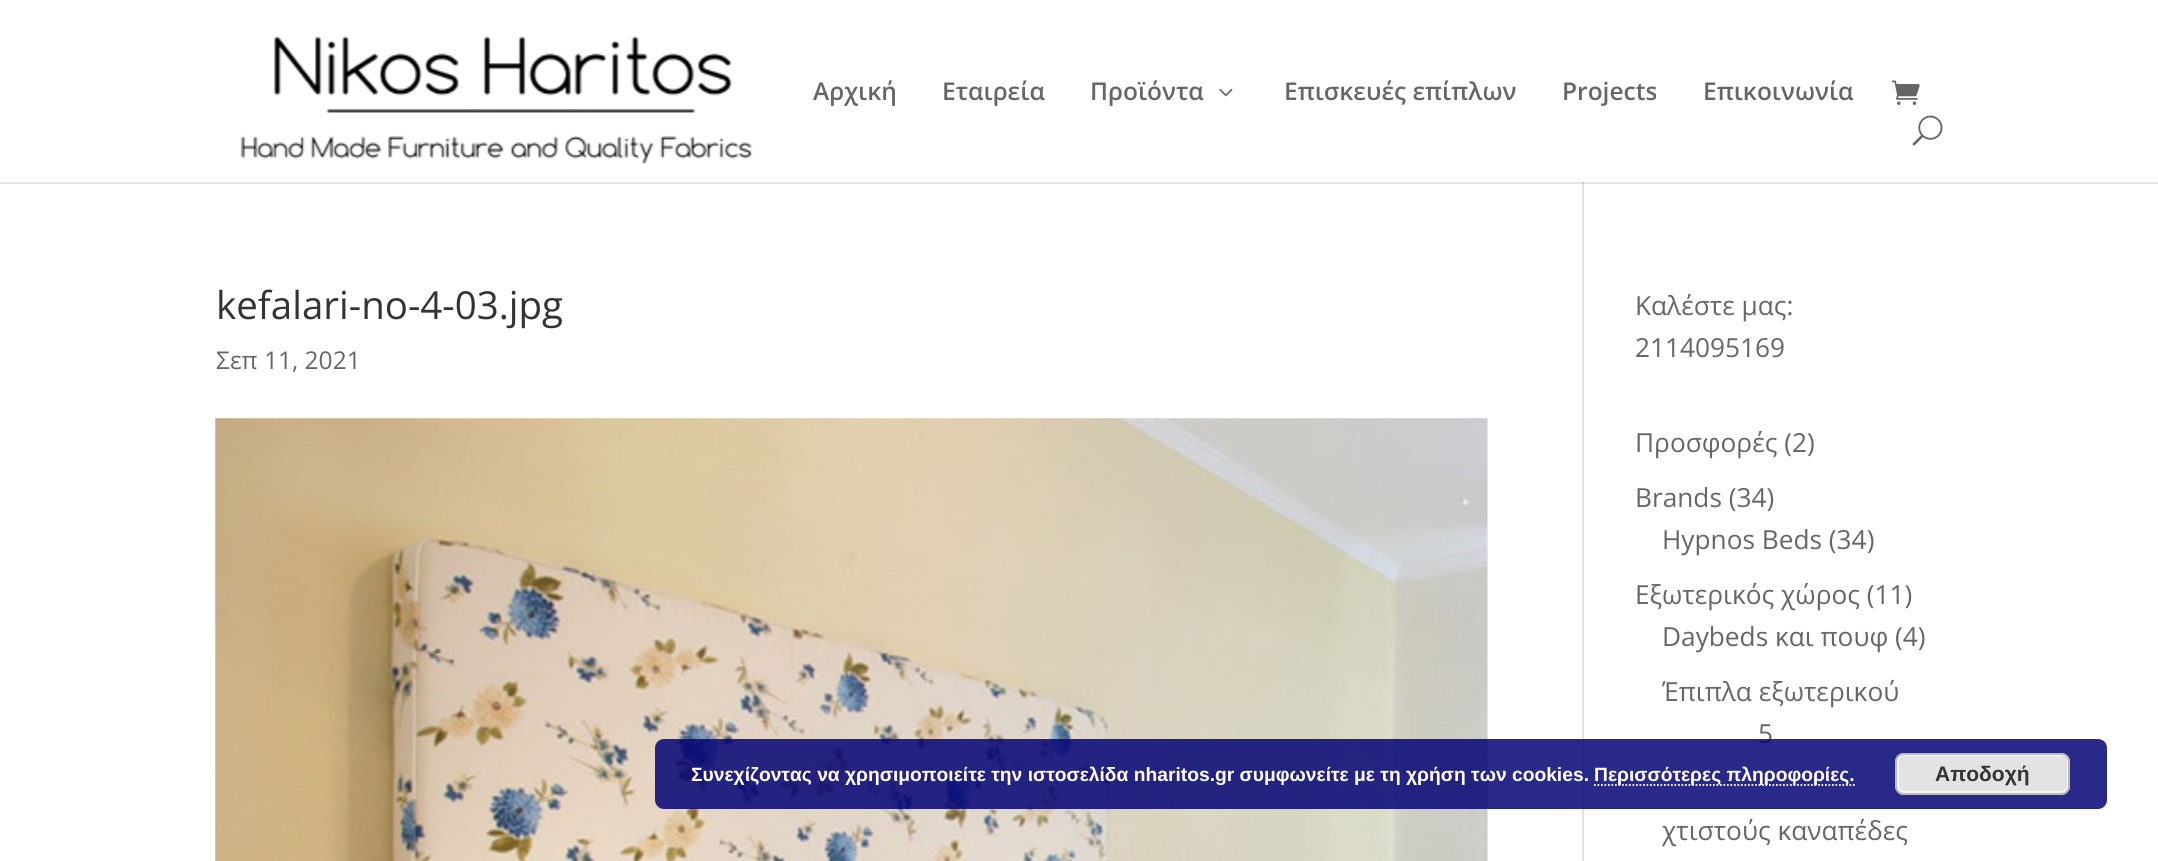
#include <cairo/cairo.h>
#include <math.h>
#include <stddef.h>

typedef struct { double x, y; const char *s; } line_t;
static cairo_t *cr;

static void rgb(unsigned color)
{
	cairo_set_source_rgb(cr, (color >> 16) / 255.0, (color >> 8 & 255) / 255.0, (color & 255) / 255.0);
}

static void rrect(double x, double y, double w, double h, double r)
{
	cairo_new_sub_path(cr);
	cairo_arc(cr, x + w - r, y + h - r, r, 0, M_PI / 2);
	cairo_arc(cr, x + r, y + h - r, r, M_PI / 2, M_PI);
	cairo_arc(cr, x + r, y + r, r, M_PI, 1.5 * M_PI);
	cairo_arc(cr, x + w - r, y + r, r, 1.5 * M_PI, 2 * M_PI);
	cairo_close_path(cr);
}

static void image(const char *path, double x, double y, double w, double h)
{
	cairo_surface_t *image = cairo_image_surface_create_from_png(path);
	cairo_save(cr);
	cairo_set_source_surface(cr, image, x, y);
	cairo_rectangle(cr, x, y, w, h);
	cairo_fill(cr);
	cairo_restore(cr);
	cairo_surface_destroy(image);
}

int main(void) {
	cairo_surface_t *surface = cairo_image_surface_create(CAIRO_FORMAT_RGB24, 2158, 861);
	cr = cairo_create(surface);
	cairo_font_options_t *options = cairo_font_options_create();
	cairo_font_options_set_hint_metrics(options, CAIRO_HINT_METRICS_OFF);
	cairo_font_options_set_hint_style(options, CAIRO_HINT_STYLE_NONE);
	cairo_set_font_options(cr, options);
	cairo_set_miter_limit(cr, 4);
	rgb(0xffffff);
	cairo_paint(cr);
	rgb(0xe2e2e2);
	cairo_rectangle(cr, 1582, 182, 2, 679);
	cairo_fill(cr);
	cairo_set_source_rgba(cr, 0, 0, 0, 0.1);
	cairo_new_path(cr);
	cairo_move_to(cr, 0, 182);
	cairo_line_to(cr, 0, 184);
	cairo_line_to(cr, 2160, 184);
	cairo_line_to(cr, 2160, 2);
	cairo_line_to(cr, 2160, 182);
	cairo_close_path(cr);
	cairo_fill(cr);
	image("img/1.png", 240, 36, 513, 129);
	image("img/2.png", 1219, 88, 14, 9);
	image("img/3.png", 1891, 80, 29, 25);
	image("img/4.png", 1912, 115, 31, 31);
	image("img/5.png", 215, 418, 1273, 443);
	cairo_select_font_face(cr, "Open Sans SemiBold", CAIRO_FONT_SLANT_NORMAL, CAIRO_FONT_WEIGHT_NORMAL);
	cairo_set_font_size(cr, 24.5);
	rgb(0x666666);
	{
		static const line_t items[] = {
			{813, 100, "Αρχική"},
			{942, 100, "Εταιρεία"},
			{1090, 100, "Προϊόντα"},
			{1284, 100, "Επισκευές επίπλων"},
			{1562, 100, "Projects"},
			{1703, 100, "Επικοινωνία"},
		};
		for (size_t i = 0; i < sizeof items / sizeof *items; i++) {
			cairo_move_to(cr, items[i].x, items[i].y);
			cairo_show_text(cr, items[i].s);
		}
	}
	cairo_select_font_face(cr, "Open Sans", CAIRO_FONT_SLANT_NORMAL, CAIRO_FONT_WEIGHT_NORMAL);
	cairo_set_font_size(cr, 38.5);
	rgb(0x333333);
	cairo_move_to(cr, 216, 319);
	cairo_show_text(cr, "kefalari-no-4-03.jpg");
	cairo_set_font_size(cr, 24.5);
	rgb(0x666666);
	cairo_move_to(cr, 216, 369);
	cairo_show_text(cr, "Σεπ 11, 2021");
	cairo_set_font_size(cr, 26.25);
	{
		static const line_t items[] = {
			{1635, 315, "Καλέστε μας:"},
			{1635, 357, "2114095169"},
			{1635, 452, "Προσφορές (2)"},
			{1635, 507, "Brands (34)"},
			{1662, 549, "Hypnos Beds (34)"},
			{1635, 604, "Εξωτερικός χώρος (11)"},
			{1662, 646, "Daybeds και πουφ (4)"},
			{1662, 701, "Έπιπλα εξωτερικού"},
			{1758, 743, "5"},
			{1662, 840, "χτιστούς καναπέδες"},
		};
		for (size_t i = 0; i < sizeof items / sizeof *items; i++) {
			cairo_move_to(cr, items[i].x, items[i].y);
			cairo_show_text(cr, items[i].s);
		}
	}
	cairo_set_source_rgba(cr, 0.016, 0.016, 0.459, 0.85);
	rrect(655, 739, 1452, 70, 9);
	cairo_fill(cr);
	cairo_select_font_face(cr, "Liberation Sans", CAIRO_FONT_SLANT_NORMAL, CAIRO_FONT_WEIGHT_BOLD);
	cairo_set_font_size(cr, 19.25);
	rgb(0xffffff);
	cairo_move_to(cr, 691, 781);
	cairo_show_text(cr, "Συνεχίζοντας να χρησιμοποιείτε την ιστοσελίδα nharitos.gr συμφωνείτε με τη χρήση των cookies.");
	cairo_new_path(cr);
	cairo_move_to(cr, 1594, 785);
	cairo_line_to(cr, 1855, 785);
	cairo_set_line_width(cr, 1.8);
	cairo_set_dash(cr, (double[]){1.75, 1.75}, 2, 0);
	cairo_stroke(cr);
	cairo_move_to(cr, 1594, 781);
	cairo_show_text(cr, "Περισσότερες πληροφορίες.");
	rgb(0xe3e3e3);
	rrect(1895, 753, 175, 42, 9);
	cairo_fill(cr);
	rrect(1898, 755, 170, 37, 6);
	rgb(0xf6f6f6);
	cairo_set_line_width(cr, 2);
	cairo_set_dash(cr, NULL, 0, 0);
	cairo_stroke(cr);
	rrect(1896, 754, 173, 40, 8);
	rgb(0xbbbbbb);
	cairo_stroke(cr);
	cairo_set_font_size(cr, 21);
	rgb(0x333333);
	cairo_move_to(cr, 1935, 781);
	cairo_show_text(cr, "Αποδοχή");
	cairo_surface_write_to_png(surface, "page.png");
	cairo_font_options_destroy(options);
	cairo_destroy(cr);
	cairo_surface_destroy(surface);
	return 0;
}
